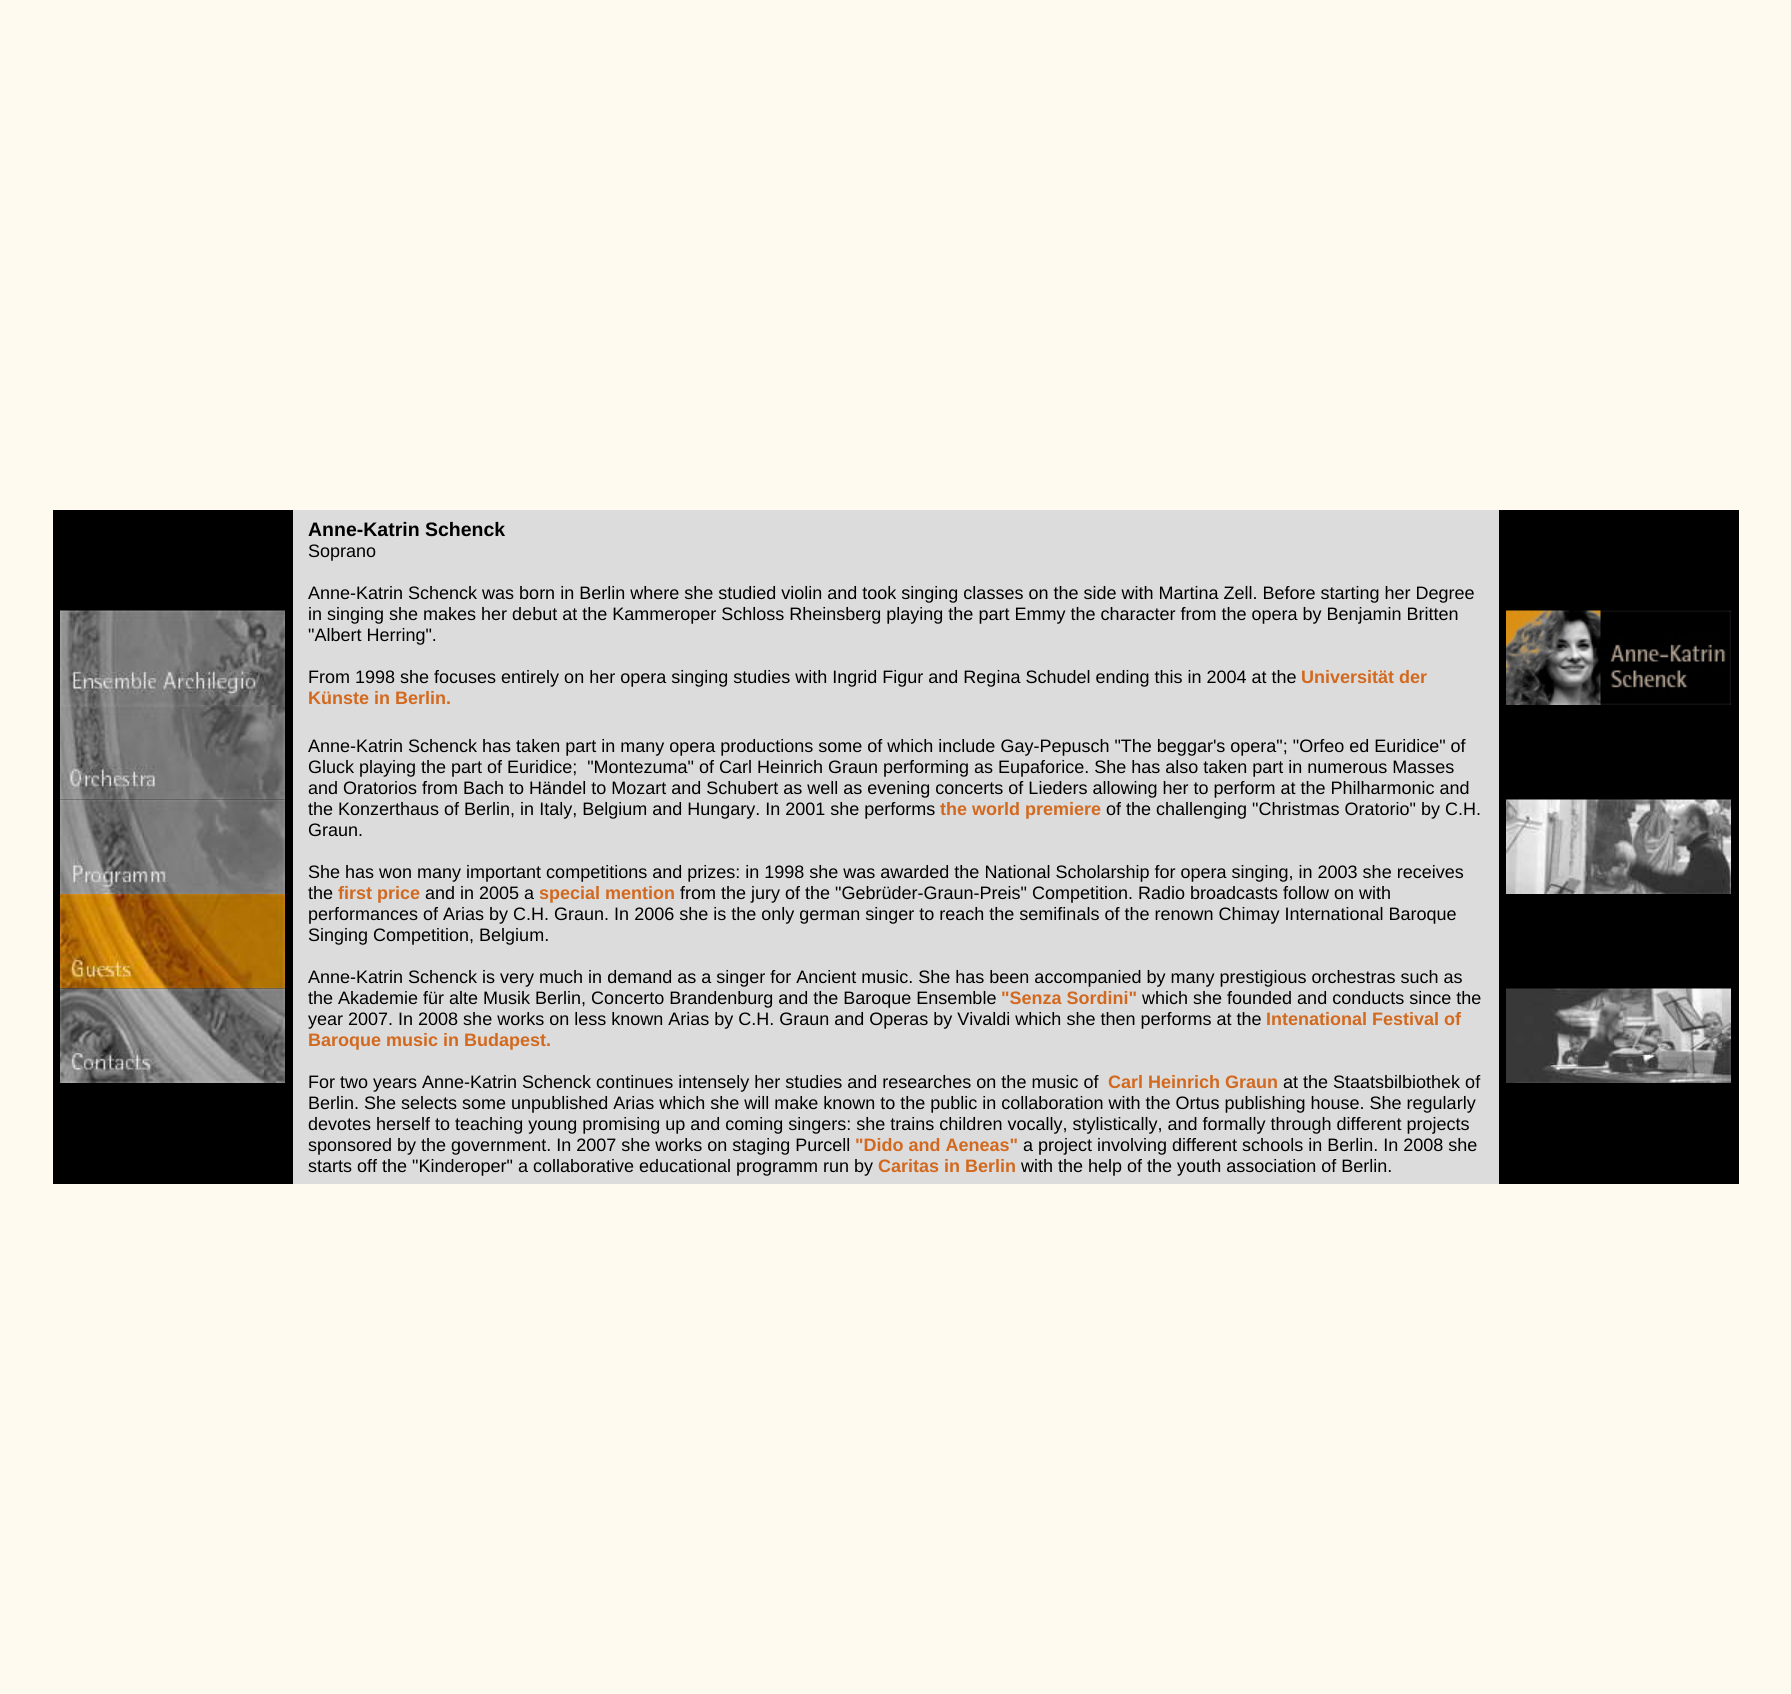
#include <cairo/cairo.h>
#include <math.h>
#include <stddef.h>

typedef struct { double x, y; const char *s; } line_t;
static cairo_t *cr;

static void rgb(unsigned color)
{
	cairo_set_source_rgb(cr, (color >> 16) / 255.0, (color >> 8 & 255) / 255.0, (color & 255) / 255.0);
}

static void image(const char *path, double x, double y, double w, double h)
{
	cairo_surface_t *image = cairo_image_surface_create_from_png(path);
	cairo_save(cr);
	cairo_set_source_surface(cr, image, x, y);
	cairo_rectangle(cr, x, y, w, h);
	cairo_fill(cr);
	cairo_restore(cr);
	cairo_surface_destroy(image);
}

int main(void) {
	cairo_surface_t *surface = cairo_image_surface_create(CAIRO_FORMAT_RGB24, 1791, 1694);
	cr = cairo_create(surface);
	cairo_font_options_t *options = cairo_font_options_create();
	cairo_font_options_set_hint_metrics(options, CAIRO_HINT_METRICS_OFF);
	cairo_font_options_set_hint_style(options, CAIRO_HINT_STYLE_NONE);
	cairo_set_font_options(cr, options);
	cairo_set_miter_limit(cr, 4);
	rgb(0xfffaf0);
	cairo_paint(cr);
	rgb(0x000000);
	cairo_rectangle(cr, 53, 510, 1686, 674);
	cairo_fill(cr);
	image("img/1.png", 60, 610, 225, 95);
	image("img/2.png", 60, 705, 225, 95);
	image("img/3.png", 60, 799, 225, 95);
	image("img/4.png", 60, 894, 225, 95);
	image("img/5.png", 60, 988, 225, 95);
	rgb(0xdcdcdc);
	cairo_rectangle(cr, 293, 510, 1206, 674);
	cairo_fill(cr);
	image("img/6.png", 1506, 610, 225, 95);
	image("img/7.png", 1506, 799, 225, 95);
	image("img/8.png", 1506, 988, 225, 95);
	cairo_select_font_face(cr, "Liberation Sans", CAIRO_FONT_SLANT_NORMAL, CAIRO_FONT_WEIGHT_BOLD);
	cairo_set_font_size(cr, 19.5);
	rgb(0x000000);
	cairo_move_to(cr, 308, 536);
	cairo_show_text(cr, "Anne-Katrin Schenck");
	cairo_select_font_face(cr, "Liberation Sans", CAIRO_FONT_SLANT_NORMAL, CAIRO_FONT_WEIGHT_NORMAL);
	cairo_set_font_size(cr, 18);
	{
		static const line_t items[] = {
			{308, 557, "Soprano"},
			{308, 599, "Anne-Katrin Schenck was born in Berlin where she studied violin and took singing classes on the side with Martina Zell. Before starting her Degree"},
			{308, 620, "in singing she makes her debut at the Kammeroper Schloss Rheinsberg playing the part Emmy the character from the opera by Benjamin Britten"},
			{308, 641, "\"Albert Herring\"."},
			{308, 683, "From 1998 she focuses entirely on her opera singing studies with Ingrid Figur and Regina Schudel ending this in 2004 at the"},
		};
		for (size_t i = 0; i < sizeof items / sizeof *items; i++) {
			cairo_move_to(cr, items[i].x, items[i].y);
			cairo_show_text(cr, items[i].s);
		}
	}
	cairo_select_font_face(cr, "Liberation Sans", CAIRO_FONT_SLANT_NORMAL, CAIRO_FONT_WEIGHT_BOLD);
	rgb(0xd2691e);
	cairo_move_to(cr, 1301, 683);
	cairo_show_text(cr, "Universität der");
	cairo_move_to(cr, 308, 704);
	cairo_show_text(cr, "Künste in Berlin.");
	cairo_select_font_face(cr, "Liberation Sans", CAIRO_FONT_SLANT_NORMAL, CAIRO_FONT_WEIGHT_NORMAL);
	rgb(0x000000);
	{
		static const line_t items[] = {
			{308, 752, "Anne-Katrin Schenck has taken part in many opera productions some of which include Gay-Pepusch \"The beggar's opera\"; \"Orfeo ed Euridice\" of"},
			{308, 773, "Gluck playing the part of Euridice;  \"Montezuma\" of Carl Heinrich Graun performing as Eupaforice. She has also taken part in numerous Masses"},
			{308, 794, "and Oratorios from Bach to Händel to Mozart and Schubert as well as evening concerts of Lieders allowing her to perform at the Philharmonic and"},
			{308, 815, "the Konzerthaus of Berlin, in Italy, Belgium and Hungary. In 2001 she performs"},
		};
		for (size_t i = 0; i < sizeof items / sizeof *items; i++) {
			cairo_move_to(cr, items[i].x, items[i].y);
			cairo_show_text(cr, items[i].s);
		}
	}
	cairo_select_font_face(cr, "Liberation Sans", CAIRO_FONT_SLANT_NORMAL, CAIRO_FONT_WEIGHT_BOLD);
	rgb(0xd2691e);
	cairo_move_to(cr, 940, 815);
	cairo_show_text(cr, "the world premiere");
	cairo_select_font_face(cr, "Liberation Sans", CAIRO_FONT_SLANT_NORMAL, CAIRO_FONT_WEIGHT_NORMAL);
	rgb(0x000000);
	{
		static const line_t items[] = {
			{1106, 815, "of the challenging \"Christmas Oratorio\" by C.H."},
			{308, 836, "Graun."},
			{308, 878, "She has won many important competitions and prizes: in 1998 she was awarded the National Scholarship for opera singing, in 2003 she receives"},
			{308, 899, "the"},
		};
		for (size_t i = 0; i < sizeof items / sizeof *items; i++) {
			cairo_move_to(cr, items[i].x, items[i].y);
			cairo_show_text(cr, items[i].s);
		}
	}
	cairo_select_font_face(cr, "Liberation Sans", CAIRO_FONT_SLANT_NORMAL, CAIRO_FONT_WEIGHT_BOLD);
	rgb(0xd2691e);
	cairo_move_to(cr, 338, 899);
	cairo_show_text(cr, "first price");
	cairo_select_font_face(cr, "Liberation Sans", CAIRO_FONT_SLANT_NORMAL, CAIRO_FONT_WEIGHT_NORMAL);
	rgb(0x000000);
	cairo_move_to(cr, 425, 899);
	cairo_show_text(cr, "and in 2005 a");
	cairo_select_font_face(cr, "Liberation Sans", CAIRO_FONT_SLANT_NORMAL, CAIRO_FONT_WEIGHT_BOLD);
	rgb(0xd2691e);
	cairo_move_to(cr, 539, 899);
	cairo_show_text(cr, "special mention");
	cairo_select_font_face(cr, "Liberation Sans", CAIRO_FONT_SLANT_NORMAL, CAIRO_FONT_WEIGHT_NORMAL);
	rgb(0x000000);
	{
		static const line_t items[] = {
			{680, 899, "from the jury of the \"Gebrüder-Graun-Preis\" Competition. Radio broadcasts follow on with"},
			{308, 920, "performances of Arias by C.H. Graun. In 2006 she is the only german singer to reach the semifinals of the renown Chimay International Baroque"},
			{308, 941, "Singing Competition, Belgium."},
			{308, 983, "Anne-Katrin Schenck is very much in demand as a singer for Ancient music. She has been accompanied by many prestigious orchestras such as"},
			{308, 1004, "the Akademie für alte Musik Berlin, Concerto Brandenburg and the Baroque Ensemble"},
		};
		for (size_t i = 0; i < sizeof items / sizeof *items; i++) {
			cairo_move_to(cr, items[i].x, items[i].y);
			cairo_show_text(cr, items[i].s);
		}
	}
	cairo_select_font_face(cr, "Liberation Sans", CAIRO_FONT_SLANT_NORMAL, CAIRO_FONT_WEIGHT_BOLD);
	rgb(0xd2691e);
	cairo_move_to(cr, 1001, 1004);
	cairo_show_text(cr, "\"Senza Sordini\"");
	cairo_select_font_face(cr, "Liberation Sans", CAIRO_FONT_SLANT_NORMAL, CAIRO_FONT_WEIGHT_NORMAL);
	rgb(0x000000);
	cairo_move_to(cr, 1142, 1004);
	cairo_show_text(cr, "which she founded and conducts since the");
	cairo_move_to(cr, 308, 1025);
	cairo_show_text(cr, "year 2007. In 2008 she works on less known Arias by C.H. Graun and Operas by Vivaldi which she then performs at the");
	cairo_select_font_face(cr, "Liberation Sans", CAIRO_FONT_SLANT_NORMAL, CAIRO_FONT_WEIGHT_BOLD);
	rgb(0xd2691e);
	cairo_move_to(cr, 1266, 1025);
	cairo_show_text(cr, "Intenational Festival of");
	cairo_move_to(cr, 308, 1046);
	cairo_show_text(cr, "Baroque music in Budapest.");
	cairo_select_font_face(cr, "Liberation Sans", CAIRO_FONT_SLANT_NORMAL, CAIRO_FONT_WEIGHT_NORMAL);
	rgb(0x000000);
	cairo_move_to(cr, 308, 1088);
	cairo_show_text(cr, "For two years Anne-Katrin Schenck continues intensely her studies and researches on the music of");
	cairo_select_font_face(cr, "Liberation Sans", CAIRO_FONT_SLANT_NORMAL, CAIRO_FONT_WEIGHT_BOLD);
	rgb(0xd2691e);
	cairo_move_to(cr, 1108, 1088);
	cairo_show_text(cr, "Carl Heinrich Graun");
	cairo_select_font_face(cr, "Liberation Sans", CAIRO_FONT_SLANT_NORMAL, CAIRO_FONT_WEIGHT_NORMAL);
	rgb(0x000000);
	{
		static const line_t items[] = {
			{1283, 1088, "at the Staatsbilbiothek of"},
			{308, 1109, "Berlin. She selects some unpublished Arias which she will make known to the public in collaboration with the Ortus publishing house. She regularly"},
			{308, 1130, "devotes herself to teaching young promising up and coming singers: she trains children vocally, stylistically, and formally through different projects"},
			{308, 1151, "sponsored by the government. In 2007 she works on staging Purcell"},
		};
		for (size_t i = 0; i < sizeof items / sizeof *items; i++) {
			cairo_move_to(cr, items[i].x, items[i].y);
			cairo_show_text(cr, items[i].s);
		}
	}
	cairo_select_font_face(cr, "Liberation Sans", CAIRO_FONT_SLANT_NORMAL, CAIRO_FONT_WEIGHT_BOLD);
	rgb(0xd2691e);
	cairo_move_to(cr, 855, 1151);
	cairo_show_text(cr, "\"Dido and Aeneas\"");
	cairo_select_font_face(cr, "Liberation Sans", CAIRO_FONT_SLANT_NORMAL, CAIRO_FONT_WEIGHT_NORMAL);
	rgb(0x000000);
	cairo_move_to(cr, 1023, 1151);
	cairo_show_text(cr, "a project involving different schools in Berlin. In 2008 she");
	cairo_move_to(cr, 308, 1172);
	cairo_show_text(cr, "starts off the \"Kinderoper\" a collaborative educational programm run by");
	cairo_select_font_face(cr, "Liberation Sans", CAIRO_FONT_SLANT_NORMAL, CAIRO_FONT_WEIGHT_BOLD);
	rgb(0xd2691e);
	cairo_move_to(cr, 878, 1172);
	cairo_show_text(cr, "Caritas in Berlin");
	cairo_select_font_face(cr, "Liberation Sans", CAIRO_FONT_SLANT_NORMAL, CAIRO_FONT_WEIGHT_NORMAL);
	rgb(0x000000);
	cairo_move_to(cr, 1021, 1172);
	cairo_show_text(cr, "with the help of the youth association of Berlin.");
	cairo_surface_write_to_png(surface, "page.png");
	cairo_font_options_destroy(options);
	cairo_destroy(cr);
	cairo_surface_destroy(surface);
	return 0;
}
